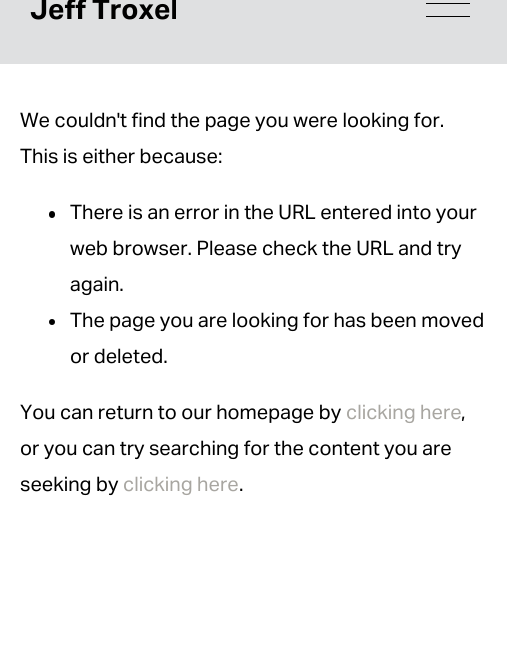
#include <cairo/cairo.h>
#include <math.h>
#include <stddef.h>

typedef struct { double x, y; const char *s; } line_t;
typedef struct { double x, y, w, h; unsigned color; } box_t;
static cairo_t *cr;

static void rgb(unsigned color)
{
	cairo_set_source_rgb(cr, (color >> 16) / 255.0, (color >> 8 & 255) / 255.0, (color & 255) / 255.0);
}

static void rrect(double x, double y, double w, double h, double r)
{
	cairo_new_sub_path(cr);
	cairo_arc(cr, x + w - r, y + h - r, r, 0, M_PI / 2);
	cairo_arc(cr, x + r, y + h - r, r, M_PI / 2, M_PI);
	cairo_arc(cr, x + r, y + r, r, M_PI, 1.5 * M_PI);
	cairo_arc(cr, x + w - r, y + r, r, 1.5 * M_PI, 2 * M_PI);
	cairo_close_path(cr);
}

int main(void) {
	cairo_surface_t *surface = cairo_image_surface_create(CAIRO_FORMAT_RGB24, 507, 654);
	cr = cairo_create(surface);
	cairo_font_options_t *options = cairo_font_options_create();
	cairo_font_options_set_hint_metrics(options, CAIRO_HINT_METRICS_OFF);
	cairo_font_options_set_hint_style(options, CAIRO_HINT_STYLE_NONE);
	cairo_set_font_options(cr, options);
	cairo_set_miter_limit(cr, 4);
	rgb(0xffffff);
	cairo_paint(cr);
	{
		static const box_t items[] = {
			{0, 0, 507, 64, 0xdfe0e1},
			{426, 3, 44, 1, 0x000000},
			{426, 16, 44, 1, 0x000000},
		};
		for (size_t i = 0; i < sizeof items / sizeof *items; i++) {
			rgb(items[i].color);
			cairo_rectangle(cr, items[i].x, items[i].y, items[i].w, items[i].h);
			cairo_fill(cr);
		}
	}
	rrect(49, 211, 6, 7, 3);
	cairo_fill(cr);
	cairo_arc(cr, 52, 322, 3, 0, 2 * M_PI);
	cairo_fill(cr);
	cairo_select_font_face(cr, "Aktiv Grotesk", CAIRO_FONT_SLANT_NORMAL, CAIRO_FONT_WEIGHT_BOLD);
	cairo_set_font_size(cr, 28);
	cairo_move_to(cr, 30, 19);
	cairo_show_text(cr, "Jeff Troxel");
	cairo_select_font_face(cr, "Aktiv Grotesk", CAIRO_FONT_SLANT_NORMAL, CAIRO_FONT_WEIGHT_NORMAL);
	cairo_set_font_size(cr, 20);
	{
		static const line_t items[] = {
			{20, 127, "We couldn't find the page you were looking for."},
			{20, 163, "This is either because:"},
			{70, 219, "There is an error in the URL entered into your"},
			{70, 255, "web browser. Please check the URL and try"},
			{70, 291, "again."},
			{70, 327, "The page you are looking for has been moved"},
			{70, 363, "or deleted."},
			{20, 419, "You can return to our homepage by"},
		};
		for (size_t i = 0; i < sizeof items / sizeof *items; i++) {
			cairo_move_to(cr, items[i].x, items[i].y);
			cairo_show_text(cr, items[i].s);
		}
	}
	rgb(0xa8a6a1);
	cairo_move_to(cr, 346, 419);
	cairo_show_text(cr, "clicking here");
	rgb(0x000000);
	{
		static const line_t items[] = {
			{461, 419, ","},
			{20, 455, "or you can try searching for the content you are"},
			{20, 491, "seeking by"},
		};
		for (size_t i = 0; i < sizeof items / sizeof *items; i++) {
			cairo_move_to(cr, items[i].x, items[i].y);
			cairo_show_text(cr, items[i].s);
		}
	}
	rgb(0xa8a6a1);
	cairo_move_to(cr, 123, 491);
	cairo_show_text(cr, "clicking here");
	rgb(0x000000);
	cairo_move_to(cr, 239, 491);
	cairo_show_text(cr, ".");
	cairo_surface_write_to_png(surface, "page.png");
	cairo_font_options_destroy(options);
	cairo_destroy(cr);
	cairo_surface_destroy(surface);
	return 0;
}
